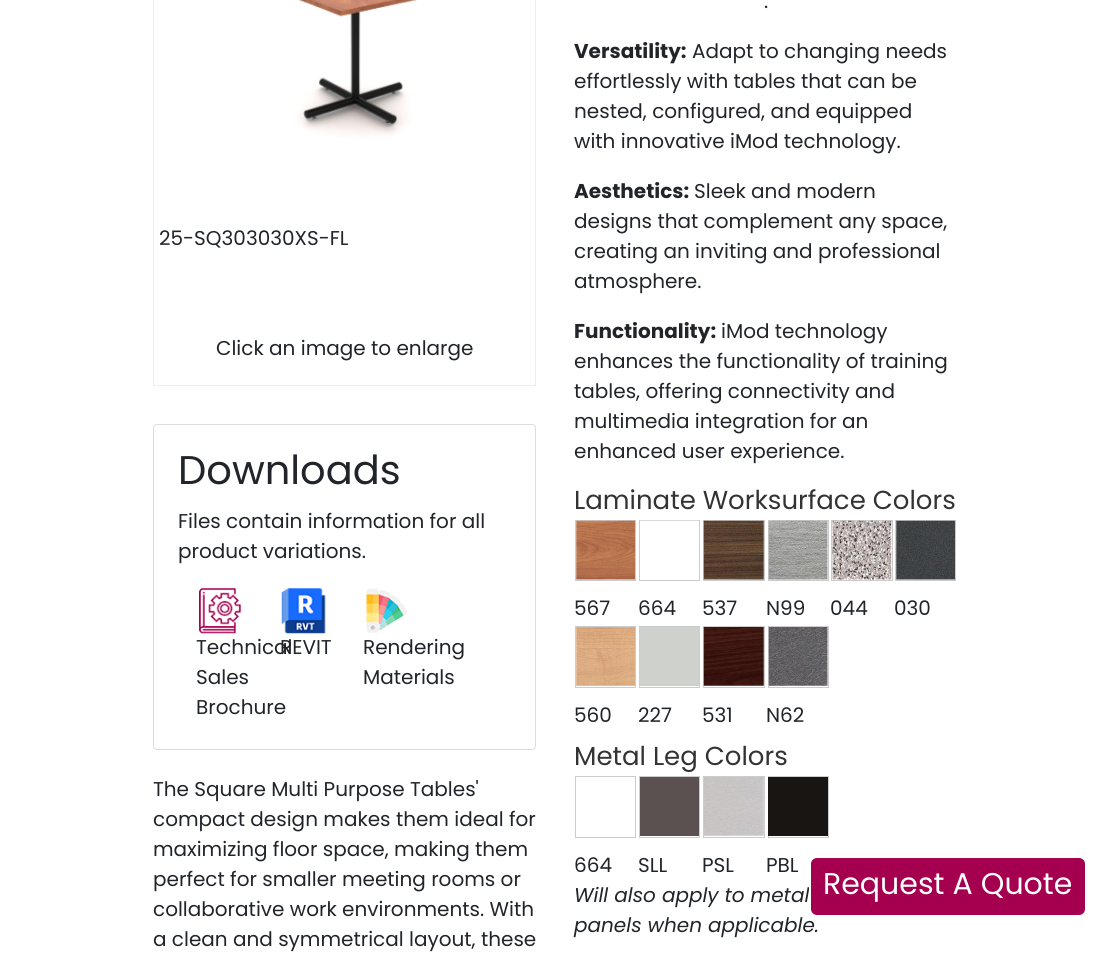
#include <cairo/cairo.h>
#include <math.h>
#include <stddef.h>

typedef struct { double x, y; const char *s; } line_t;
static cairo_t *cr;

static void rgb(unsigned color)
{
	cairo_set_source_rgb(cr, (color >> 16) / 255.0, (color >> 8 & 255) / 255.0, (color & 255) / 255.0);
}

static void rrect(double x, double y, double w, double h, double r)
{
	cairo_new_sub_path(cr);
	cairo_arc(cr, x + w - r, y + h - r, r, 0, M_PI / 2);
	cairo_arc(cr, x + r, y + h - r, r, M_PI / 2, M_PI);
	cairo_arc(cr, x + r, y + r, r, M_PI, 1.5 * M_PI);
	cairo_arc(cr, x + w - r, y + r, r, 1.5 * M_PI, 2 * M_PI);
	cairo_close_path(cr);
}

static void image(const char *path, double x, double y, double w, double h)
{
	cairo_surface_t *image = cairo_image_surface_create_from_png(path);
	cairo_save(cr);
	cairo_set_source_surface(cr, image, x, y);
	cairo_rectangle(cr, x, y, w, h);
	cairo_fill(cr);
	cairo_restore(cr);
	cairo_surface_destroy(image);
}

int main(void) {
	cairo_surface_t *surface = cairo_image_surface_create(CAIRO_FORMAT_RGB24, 1109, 965);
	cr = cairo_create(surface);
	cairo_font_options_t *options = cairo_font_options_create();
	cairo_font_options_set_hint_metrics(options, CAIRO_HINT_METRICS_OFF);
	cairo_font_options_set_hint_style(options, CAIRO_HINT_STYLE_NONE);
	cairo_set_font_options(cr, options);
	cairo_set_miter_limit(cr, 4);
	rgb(0xffffff);
	cairo_paint(cr);
	cairo_rectangle(cr, 153.5, -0.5, 382, 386);
	rgb(0xeeeeee);
	cairo_set_line_width(cr, 1);
	cairo_stroke(cr);
	image("img/1.png", 296, 0, 121, 138);
	rrect(153.5, 424.5, 382, 325, 3.5);
	rgb(0xdddddd);
	cairo_stroke(cr);
	image("img/2.png", 199, 588, 42, 46);
	image("img/3.png", 281, 588, 45, 46);
	image("img/4.png", 366, 588, 41, 45);
	cairo_rectangle(cr, 575.5, 520.5, 60, 60);
	rgb(0xcccccc);
	cairo_stroke(cr);
	image("img/5.png", 576, 520, 59, 60);
	cairo_rectangle(cr, 639.5, 520.5, 60, 60);
	cairo_stroke(cr);
	image("img/6.png", 640, 520, 59, 1);
	cairo_rectangle(cr, 703.5, 520.5, 61, 60);
	cairo_stroke(cr);
	image("img/7.png", 703, 520, 61, 60);
	cairo_rectangle(cr, 768.5, 520.5, 60, 60);
	cairo_stroke(cr);
	image("img/8.png", 768, 520, 60, 60);
	cairo_rectangle(cr, 831.5, 520.5, 61, 60);
	cairo_stroke(cr);
	image("img/9.png", 832, 520, 60, 60);
	cairo_rectangle(cr, 895.5, 520.5, 60, 60);
	cairo_stroke(cr);
	image("img/10.png", 896, 520, 59, 60);
	cairo_rectangle(cr, 575.5, 626.5, 60, 61);
	cairo_stroke(cr);
	image("img/11.png", 576, 627, 59, 59);
	cairo_rectangle(cr, 639.5, 626.5, 60, 61);
	cairo_stroke(cr);
	rgb(0xcfd1cc);
	cairo_rectangle(cr, 640, 627, 59, 59);
	cairo_fill(cr);
	cairo_rectangle(cr, 703.5, 626.5, 61, 61);
	rgb(0xcccccc);
	cairo_stroke(cr);
	image("img/12.png", 703, 627, 61, 59);
	cairo_rectangle(cr, 768.5, 626.5, 60, 61);
	cairo_stroke(cr);
	image("img/13.png", 768, 627, 60, 59);
	cairo_rectangle(cr, 575.5, 776.5, 60, 61);
	cairo_stroke(cr);
	cairo_rectangle(cr, 639.5, 776.5, 60, 61);
	cairo_stroke(cr);
	rgb(0x5b5150);
	cairo_rectangle(cr, 640, 777, 59, 59);
	cairo_fill(cr);
	cairo_rectangle(cr, 703.5, 776.5, 61, 61);
	rgb(0xcccccc);
	cairo_stroke(cr);
	image("img/14.png", 704, 777, 60, 59);
	cairo_rectangle(cr, 768.5, 776.5, 60, 61);
	cairo_stroke(cr);
	rgb(0x191512);
	cairo_rectangle(cr, 768, 777, 60, 59);
	cairo_fill(cr);
	rgb(0xa50050);
	rrect(811, 858, 274, 57, 6);
	cairo_fill(cr);
	cairo_select_font_face(cr, "Poppins", CAIRO_FONT_SLANT_NORMAL, CAIRO_FONT_WEIGHT_NORMAL);
	cairo_set_font_size(cr, 20);
	rgb(0x212529);
	cairo_move_to(cr, 159, 245);
	cairo_show_text(cr, "25-SQ303030XS-FL");
	cairo_move_to(cr, 216, 355);
	cairo_show_text(cr, "Click an image to enlarge");
	cairo_set_font_size(cr, 40);
	cairo_move_to(cr, 178, 484);
	cairo_show_text(cr, "Downloads");
	cairo_set_font_size(cr, 20);
	{
		static const line_t items[] = {
			{178, 528, "Files contain information for all"},
			{178, 558, "product variations."},
			{196, 654, "Technical"},
			{196, 684, "Sales"},
			{196, 714, "Brochure"},
			{280, 654, "REVIT"},
			{363, 654, "Rendering"},
			{363, 684, "Materials"},
			{153, 796, "The Square Multi Purpose Tables'"},
			{153, 826, "compact design makes them ideal for"},
			{153, 856, "maximizing floor space, making them"},
			{153, 886, "perfect for smaller meeting rooms or"},
			{153, 916, "collaborative work environments. With"},
			{153, 946, "a clean and symmetrical layout, these"},
			{764, 8, "."},
		};
		for (size_t i = 0; i < sizeof items / sizeof *items; i++) {
			cairo_move_to(cr, items[i].x, items[i].y);
			cairo_show_text(cr, items[i].s);
		}
	}
	cairo_select_font_face(cr, "Poppins", CAIRO_FONT_SLANT_NORMAL, CAIRO_FONT_WEIGHT_BOLD);
	cairo_move_to(cr, 574, 58);
	cairo_show_text(cr, "Versatility:");
	cairo_select_font_face(cr, "Poppins", CAIRO_FONT_SLANT_NORMAL, CAIRO_FONT_WEIGHT_NORMAL);
	{
		static const line_t items[] = {
			{692, 58, "Adapt to changing needs"},
			{574, 88, "effortlessly with tables that can be"},
			{574, 118, "nested, configured, and equipped"},
			{574, 148, "with innovative iMod technology."},
		};
		for (size_t i = 0; i < sizeof items / sizeof *items; i++) {
			cairo_move_to(cr, items[i].x, items[i].y);
			cairo_show_text(cr, items[i].s);
		}
	}
	cairo_select_font_face(cr, "Poppins", CAIRO_FONT_SLANT_NORMAL, CAIRO_FONT_WEIGHT_BOLD);
	cairo_move_to(cr, 574, 198);
	cairo_show_text(cr, "Aesthetics:");
	cairo_select_font_face(cr, "Poppins", CAIRO_FONT_SLANT_NORMAL, CAIRO_FONT_WEIGHT_NORMAL);
	{
		static const line_t items[] = {
			{694, 198, "Sleek and modern"},
			{574, 228, "designs that complement any space,"},
			{574, 258, "creating an inviting and professional"},
			{574, 288, "atmosphere."},
		};
		for (size_t i = 0; i < sizeof items / sizeof *items; i++) {
			cairo_move_to(cr, items[i].x, items[i].y);
			cairo_show_text(cr, items[i].s);
		}
	}
	cairo_select_font_face(cr, "Poppins", CAIRO_FONT_SLANT_NORMAL, CAIRO_FONT_WEIGHT_BOLD);
	cairo_move_to(cr, 574, 338);
	cairo_show_text(cr, "Functionality:");
	cairo_select_font_face(cr, "Poppins", CAIRO_FONT_SLANT_NORMAL, CAIRO_FONT_WEIGHT_NORMAL);
	{
		static const line_t items[] = {
			{721, 338, "iMod technology"},
			{574, 368, "enhances the functionality of training"},
			{574, 398, "tables, offering connectivity and"},
			{574, 428, "multimedia integration for an"},
			{574, 458, "enhanced user experience."},
		};
		for (size_t i = 0; i < sizeof items / sizeof *items; i++) {
			cairo_move_to(cr, items[i].x, items[i].y);
			cairo_show_text(cr, items[i].s);
		}
	}
	cairo_set_font_size(cr, 26);
	rgb(0x333333);
	cairo_move_to(cr, 574, 509);
	cairo_show_text(cr, "Laminate Worksurface Colors");
	cairo_set_font_size(cr, 20);
	rgb(0x212529);
	{
		static const line_t items[] = {
			{574, 615, "567"},
			{638, 615, "664"},
			{702, 615, "537"},
			{766, 615, "N99"},
			{830, 615, "044"},
			{894, 615, "030"},
			{574, 722, "560"},
			{638, 722, "227"},
			{702, 722, "531"},
			{766, 722, "N62"},
		};
		for (size_t i = 0; i < sizeof items / sizeof *items; i++) {
			cairo_move_to(cr, items[i].x, items[i].y);
			cairo_show_text(cr, items[i].s);
		}
	}
	cairo_set_font_size(cr, 26);
	rgb(0x333333);
	cairo_move_to(cr, 574, 765);
	cairo_show_text(cr, "Metal Leg Colors");
	cairo_set_font_size(cr, 20);
	rgb(0x212529);
	{
		static const line_t items[] = {
			{574, 872, "664"},
			{638, 872, "SLL"},
			{702, 872, "PSL"},
			{766, 872, "PBL"},
		};
		for (size_t i = 0; i < sizeof items / sizeof *items; i++) {
			cairo_move_to(cr, items[i].x, items[i].y);
			cairo_show_text(cr, items[i].s);
		}
	}
	cairo_select_font_face(cr, "Poppins", CAIRO_FONT_SLANT_ITALIC, CAIRO_FONT_WEIGHT_NORMAL);
	cairo_move_to(cr, 574, 902);
	cairo_show_text(cr, "Will also apply to metal");
	cairo_move_to(cr, 574, 932);
	cairo_show_text(cr, "panels when applicable.");
	cairo_select_font_face(cr, "Poppins", CAIRO_FONT_SLANT_NORMAL, CAIRO_FONT_WEIGHT_NORMAL);
	cairo_set_font_size(cr, 30);
	rgb(0xffffff);
	cairo_move_to(cr, 823, 894);
	cairo_show_text(cr, "Request A Quote");
	cairo_surface_write_to_png(surface, "page.png");
	cairo_font_options_destroy(options);
	cairo_destroy(cr);
	cairo_surface_destroy(surface);
	return 0;
}
